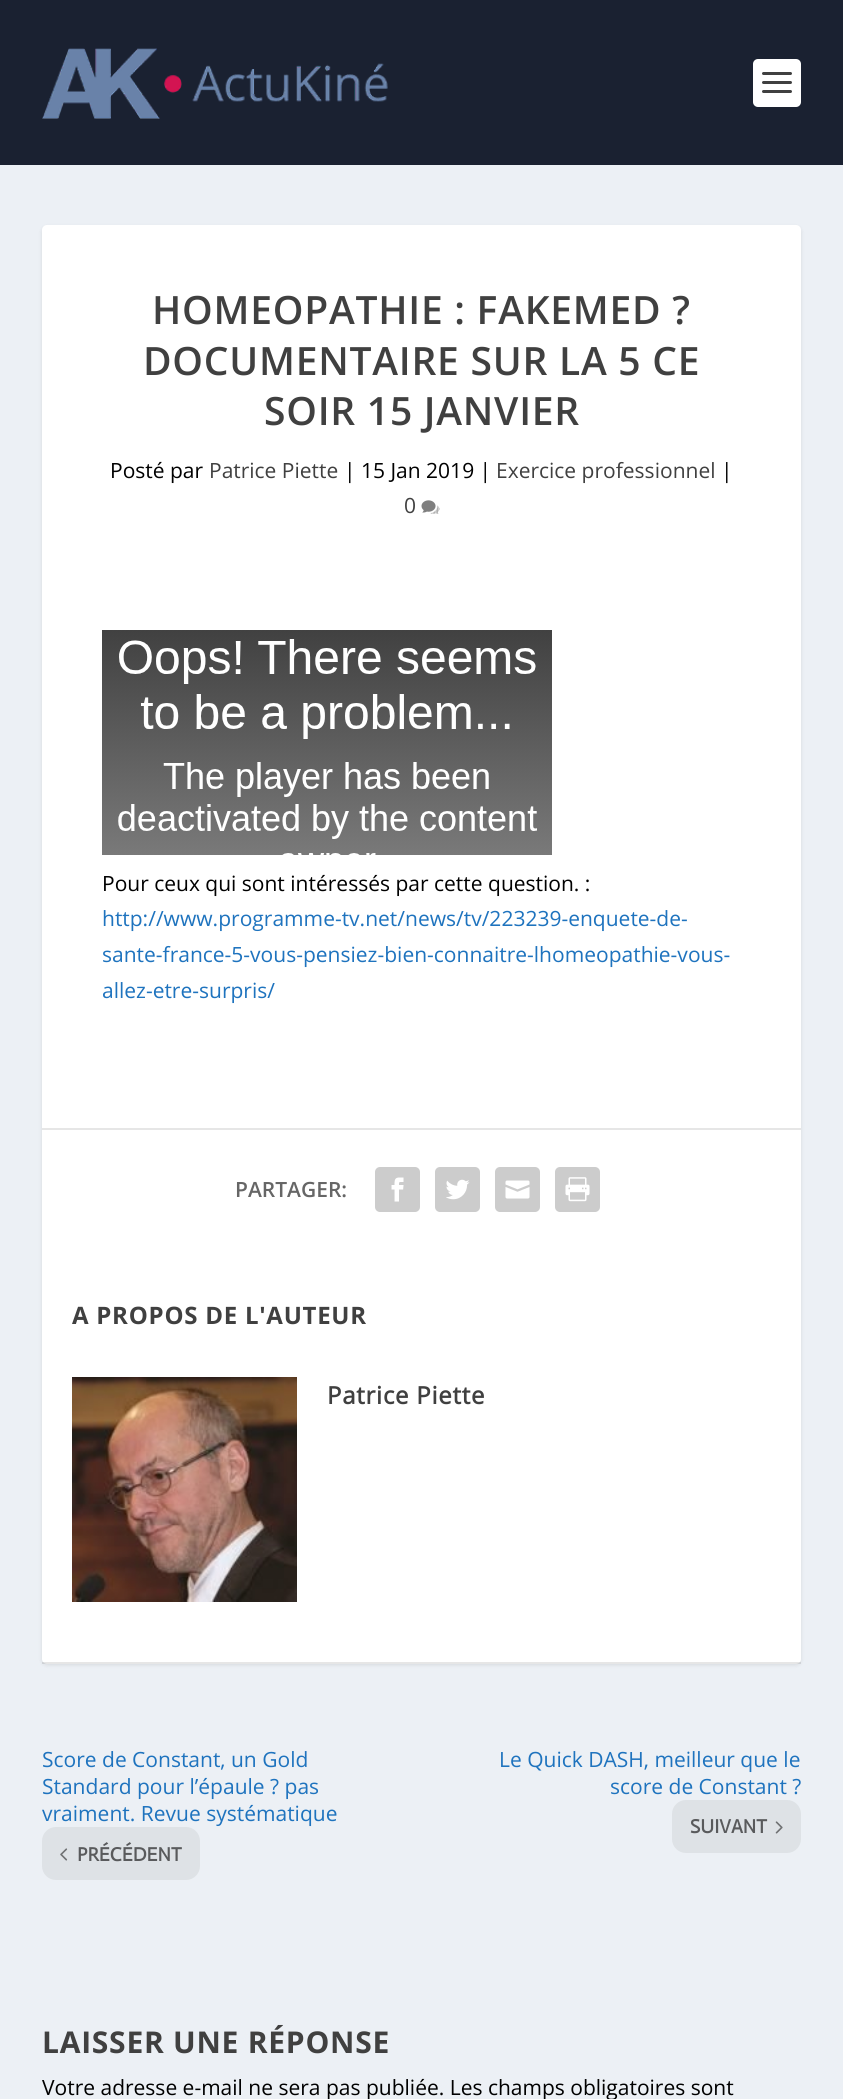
#include <cairo/cairo.h>
#include <math.h>
#include <stddef.h>

typedef struct { double x, y; const char *s; } line_t;
static cairo_t *cr;

static void rgb(unsigned color)
{
	cairo_set_source_rgb(cr, (color >> 16) / 255.0, (color >> 8 & 255) / 255.0, (color & 255) / 255.0);
}

static void tracked(double x, double y, const char *s, double letter, double word)
{
	cairo_move_to(cr, x, y);
	while (*s) {
		char ch[5] = {0};
		int n = 0;
		do ch[n++] = *s++; while ((*s & 0xC0) == 0x80);
		cairo_show_text(cr, ch);
		cairo_rel_move_to(cr, letter + word * (*ch == ' '), 0);
	}
}

static void rrect(double x, double y, double w, double h, double r)
{
	cairo_new_sub_path(cr);
	cairo_arc(cr, x + w - r, y + h - r, r, 0, M_PI / 2);
	cairo_arc(cr, x + r, y + h - r, r, M_PI / 2, M_PI);
	cairo_arc(cr, x + r, y + r, r, M_PI, 1.5 * M_PI);
	cairo_arc(cr, x + w - r, y + r, r, 1.5 * M_PI, 2 * M_PI);
	cairo_close_path(cr);
}

static void soft_shadow(double x, double y, double w, double h, double r, double blur, double alpha)
{
	cairo_push_group_with_content(cr, CAIRO_CONTENT_ALPHA);
	cairo_set_operator(cr, CAIRO_OPERATOR_SOURCE);
	for (int i = 15; i >= -15 && fmin(w, h) + blur * i / 3 > 0; i -= 2) {
		double e = blur * i / 6;
		cairo_set_source_rgba(cr, 0, 0, 0, alpha * erfc((i - 1) / 8.5) / 2);
		rrect(x - e, y - e, w + 2 * e, h + 2 * e, fmax(0, fmin(r + e + blur * .6, fmin(w, h) / 2 + e)));
		cairo_fill(cr);
	}
	cairo_pattern_t *soft = cairo_pop_group(cr);
	cairo_mask(cr, soft);
	cairo_pattern_destroy(soft);
}

static void image(const char *path, double x, double y, double w, double h)
{
	cairo_surface_t *image = cairo_image_surface_create_from_png(path);
	cairo_save(cr);
	cairo_set_source_surface(cr, image, x, y);
	cairo_rectangle(cr, x, y, w, h);
	cairo_fill(cr);
	cairo_restore(cr);
	cairo_surface_destroy(image);
}

int main(void) {
	cairo_surface_t *surface = cairo_image_surface_create(CAIRO_FORMAT_RGB24, 843, 2099);
	cr = cairo_create(surface);
	cairo_font_options_t *options = cairo_font_options_create();
	cairo_font_options_set_hint_metrics(options, CAIRO_HINT_METRICS_OFF);
	cairo_font_options_set_hint_style(options, CAIRO_HINT_STYLE_NONE);
	cairo_set_font_options(cr, options);
	cairo_set_miter_limit(cr, 4);
	rgb(0xecf0f5);
	cairo_paint(cr);
	rgb(0x1a2131);
	cairo_rectangle(cr, 0, 0, 843, 165);
	cairo_fill(cr);
	image("img/1.png", 42, 48, 346, 71);
	rgb(0xffffff);
	rrect(753, 59, 48, 48, 5);
	cairo_fill(cr);
	rgb(0x404040);
	rrect(762, 72, 30, 3, 1.5);
	cairo_fill(cr);
	rrect(762, 81, 30, 3, 1.5);
	cairo_fill(cr);
	rrect(762, 90, 30, 3, 1.5);
	cairo_fill(cr);
	rgb(0x000000);
	soft_shadow(42, 227, 759, 1438, 5, 2, 0.1);
	rgb(0xffffff);
	rrect(42, 225, 759, 1439, 5);
	cairo_fill(cr);
	image("img/2.png", 421, 500, 19, 14);
	image("img/3.png", 102, 630, 450, 225);
	rgb(0xe6e6e6);
	cairo_rectangle(cr, 42, 1128, 759, 2);
	cairo_fill(cr);
	rgb(0xcccccc);
	rrect(375, 1167, 45, 45, 5);
	cairo_fill(cr);
	image("img/4.png", 391, 1177, 13, 25);
	rrect(435, 1167, 45, 45, 5);
	cairo_fill(cr);
	image("img/5.png", 446, 1179, 24, 21);
	rrect(495, 1167, 45, 45, 5);
	cairo_fill(cr);
	image("img/6.png", 505, 1180, 25, 19);
	rrect(555, 1167, 45, 45, 5);
	cairo_fill(cr);
	image("img/7.png", 565, 1177, 25, 25);
	cairo_set_source_rgba(cr, 0, 0, 0, 0.1);
	cairo_rectangle(cr, 42, 1662, 759, 2);
	cairo_fill(cr);
	image("img/8.png", 72, 1377, 225, 225);
	rgb(0xdee2e6);
	rrect(42, 1827, 158, 53, 14);
	cairo_fill(cr);
	image("img/9.png", 60, 1848, 8, 13);
	rrect(672, 1800, 129, 53, 14);
	cairo_fill(cr);
	image("img/10.png", 775, 1821, 8, 13);
	cairo_select_font_face(cr, "Open Sans SemiBold", CAIRO_FONT_SLANT_NORMAL, CAIRO_FONT_WEIGHT_NORMAL);
	cairo_set_font_size(cr, 39);
	rgb(0x404040);
	{
		static const line_t items[] = {
			{152, 324, "HOMEOPATHIE : FAKEMED ?"},
			{143, 375, "DOCUMENTAIRE SUR LA 5 CE"},
			{264, 425, "SOIR 15 JANVIER"},
		};
		for (size_t i = 0; i < sizeof items / sizeof *items; i++) {
			tracked(items[i].x, items[i].y, items[i].s, 0.75, 0);
		}
	}
	cairo_select_font_face(cr, "Open Sans", CAIRO_FONT_SLANT_NORMAL, CAIRO_FONT_WEIGHT_NORMAL);
	cairo_set_font_size(cr, 21);
	rgb(0x000000);
	cairo_move_to(cr, 110, 478);
	cairo_show_text(cr, "Posté par");
	cairo_select_font_face(cr, "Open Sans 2", CAIRO_FONT_SLANT_NORMAL, CAIRO_FONT_WEIGHT_NORMAL);
	rgb(0x404040);
	cairo_move_to(cr, 209, 478);
	cairo_show_text(cr, "Patrice Piette");
	cairo_select_font_face(cr, "Open Sans", CAIRO_FONT_SLANT_NORMAL, CAIRO_FONT_WEIGHT_NORMAL);
	rgb(0x000000);
	cairo_move_to(cr, 344, 478);
	cairo_show_text(cr, "| 15 Jan 2019 |");
	cairo_select_font_face(cr, "Open Sans 2", CAIRO_FONT_SLANT_NORMAL, CAIRO_FONT_WEIGHT_NORMAL);
	rgb(0x404040);
	cairo_move_to(cr, 496, 478);
	cairo_show_text(cr, "Exercice professionnel");
	cairo_select_font_face(cr, "Open Sans", CAIRO_FONT_SLANT_NORMAL, CAIRO_FONT_WEIGHT_NORMAL);
	rgb(0x000000);
	cairo_move_to(cr, 721, 478);
	cairo_show_text(cr, "|");
	cairo_select_font_face(cr, "Open Sans 2", CAIRO_FONT_SLANT_NORMAL, CAIRO_FONT_WEIGHT_NORMAL);
	rgb(0x404040);
	cairo_move_to(cr, 404, 513);
	cairo_show_text(cr, "0");
	cairo_select_font_face(cr, "Open Sans", CAIRO_FONT_SLANT_NORMAL, CAIRO_FONT_WEIGHT_NORMAL);
	rgb(0x000000);
	cairo_move_to(cr, 102, 891);
	cairo_show_text(cr, "Pour ceux qui sont intéressés par cette question. :");
	cairo_select_font_face(cr, "Open Sans 2", CAIRO_FONT_SLANT_NORMAL, CAIRO_FONT_WEIGHT_NORMAL);
	rgb(0x1e73be);
	{
		static const line_t items[] = {
			{102, 926, "http://www.programme-tv.net/news/tv/223239-enquete-de-"},
			{102, 962, "sante-france-5-vous-pensiez-bien-connaitre-lhomeopathie-vous-"},
			{102, 998, "allez-etre-surpris/"},
		};
		for (size_t i = 0; i < sizeof items / sizeof *items; i++) {
			cairo_move_to(cr, items[i].x, items[i].y);
			cairo_show_text(cr, items[i].s);
		}
	}
	cairo_select_font_face(cr, "Open Sans SemiBold", CAIRO_FONT_SLANT_NORMAL, CAIRO_FONT_WEIGHT_NORMAL);
	rgb(0x666666);
	cairo_move_to(cr, 235, 1197);
	cairo_show_text(cr, "PARTAGER:");
	cairo_select_font_face(cr, "Open Sans", CAIRO_FONT_SLANT_NORMAL, CAIRO_FONT_WEIGHT_BOLD);
	cairo_set_font_size(cr, 24);
	rgb(0x404040);
	tracked(72, 1324, "A PROPOS DE L'AUTEUR", 0.75, 0);
	cairo_select_font_face(cr, "Open Sans 2", CAIRO_FONT_SLANT_NORMAL, CAIRO_FONT_WEIGHT_BOLD);
	tracked(327, 1404, "Patrice Piette", 0.75, 0);
	cairo_select_font_face(cr, "Open Sans 2", CAIRO_FONT_SLANT_NORMAL, CAIRO_FONT_WEIGHT_NORMAL);
	cairo_set_font_size(cr, 21);
	rgb(0x1e73be);
	{
		static const line_t items[] = {
			{42, 1767, "Score de Constant, un Gold"},
			{42, 1794, "Standard pour l’épaule ? pas"},
			{42, 1821, "vraiment. Revue systématique"},
		};
		for (size_t i = 0; i < sizeof items / sizeof *items; i++) {
			cairo_move_to(cr, items[i].x, items[i].y);
			cairo_show_text(cr, items[i].s);
		}
	}
	cairo_select_font_face(cr, "Actor", CAIRO_FONT_SLANT_NORMAL, CAIRO_FONT_WEIGHT_BOLD);
	cairo_set_font_size(cr, 19.5);
	rgb(0x595a5c);
	cairo_move_to(cr, 77, 1861);
	cairo_show_text(cr, "PRÉCÉDENT");
	cairo_select_font_face(cr, "Open Sans 2", CAIRO_FONT_SLANT_NORMAL, CAIRO_FONT_WEIGHT_NORMAL);
	cairo_set_font_size(cr, 21);
	rgb(0x1e73be);
	cairo_move_to(cr, 499, 1767);
	cairo_show_text(cr, "Le Quick DASH, meilleur que le");
	cairo_move_to(cr, 610, 1794);
	cairo_show_text(cr, "score de Constant ?");
	cairo_select_font_face(cr, "Actor", CAIRO_FONT_SLANT_NORMAL, CAIRO_FONT_WEIGHT_BOLD);
	cairo_set_font_size(cr, 19.5);
	rgb(0x595a5c);
	cairo_move_to(cr, 690, 1833);
	cairo_show_text(cr, "SUIVANT");
	cairo_select_font_face(cr, "Open Sans", CAIRO_FONT_SLANT_NORMAL, CAIRO_FONT_WEIGHT_BOLD);
	cairo_set_font_size(cr, 30);
	rgb(0x404040);
	tracked(42, 2053, "LAISSER UNE RÉPONSE", 0.75, 0);
	cairo_select_font_face(cr, "Open Sans", CAIRO_FONT_SLANT_NORMAL, CAIRO_FONT_WEIGHT_NORMAL);
	cairo_set_font_size(cr, 21);
	rgb(0x000000);
	cairo_move_to(cr, 42, 2095);
	cairo_show_text(cr, "Votre adresse e-mail ne sera pas publiée. Les champs obligatoires sont");
	cairo_surface_write_to_png(surface, "page.png");
	cairo_font_options_destroy(options);
	cairo_destroy(cr);
	cairo_surface_destroy(surface);
	return 0;
}
